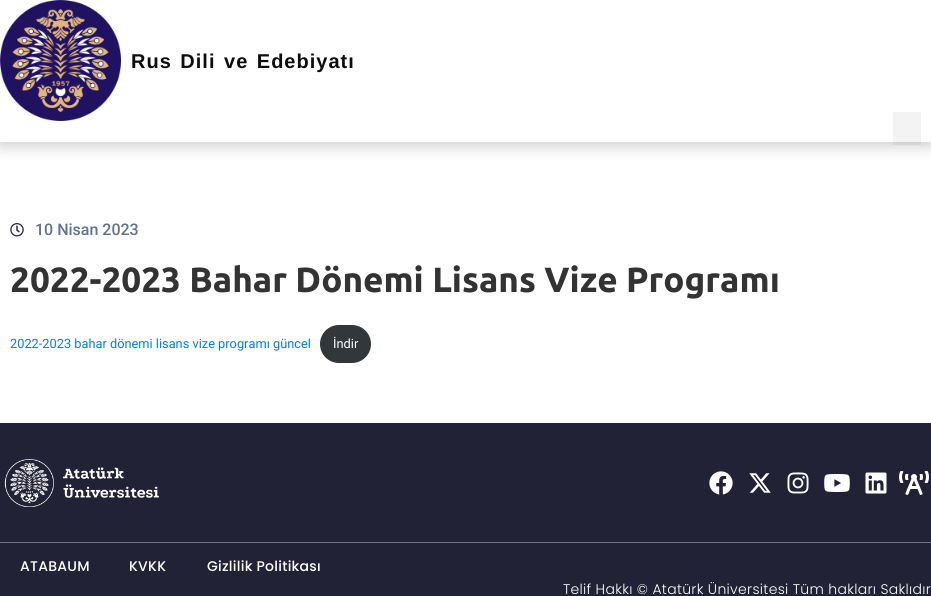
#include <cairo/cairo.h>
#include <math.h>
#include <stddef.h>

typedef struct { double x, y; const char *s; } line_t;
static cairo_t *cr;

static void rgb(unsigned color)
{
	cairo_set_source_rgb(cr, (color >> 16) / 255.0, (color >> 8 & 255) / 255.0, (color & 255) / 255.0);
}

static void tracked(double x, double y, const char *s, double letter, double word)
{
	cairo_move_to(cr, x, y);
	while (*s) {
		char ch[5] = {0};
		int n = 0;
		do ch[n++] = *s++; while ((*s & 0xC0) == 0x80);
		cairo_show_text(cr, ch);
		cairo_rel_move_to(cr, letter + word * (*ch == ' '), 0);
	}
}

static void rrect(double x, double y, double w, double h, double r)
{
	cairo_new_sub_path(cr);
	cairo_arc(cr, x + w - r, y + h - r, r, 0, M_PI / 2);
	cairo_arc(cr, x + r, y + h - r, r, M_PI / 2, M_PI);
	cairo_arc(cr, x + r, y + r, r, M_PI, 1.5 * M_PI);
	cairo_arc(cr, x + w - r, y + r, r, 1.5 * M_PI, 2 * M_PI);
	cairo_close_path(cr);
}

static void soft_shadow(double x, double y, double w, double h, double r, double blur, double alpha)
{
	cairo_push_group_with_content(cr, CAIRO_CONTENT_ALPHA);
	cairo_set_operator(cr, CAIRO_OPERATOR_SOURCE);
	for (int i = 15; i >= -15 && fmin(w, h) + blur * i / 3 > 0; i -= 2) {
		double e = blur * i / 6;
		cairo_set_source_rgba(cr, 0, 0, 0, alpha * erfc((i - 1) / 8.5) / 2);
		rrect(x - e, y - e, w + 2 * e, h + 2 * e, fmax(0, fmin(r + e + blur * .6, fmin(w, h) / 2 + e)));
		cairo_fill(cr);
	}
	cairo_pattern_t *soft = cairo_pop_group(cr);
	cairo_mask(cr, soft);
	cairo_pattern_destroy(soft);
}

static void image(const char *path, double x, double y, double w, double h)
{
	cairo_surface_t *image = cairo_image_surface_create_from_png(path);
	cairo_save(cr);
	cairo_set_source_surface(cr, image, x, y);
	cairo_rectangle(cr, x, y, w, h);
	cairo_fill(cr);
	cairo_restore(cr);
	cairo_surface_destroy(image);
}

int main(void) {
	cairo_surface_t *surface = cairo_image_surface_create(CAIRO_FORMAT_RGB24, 931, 596);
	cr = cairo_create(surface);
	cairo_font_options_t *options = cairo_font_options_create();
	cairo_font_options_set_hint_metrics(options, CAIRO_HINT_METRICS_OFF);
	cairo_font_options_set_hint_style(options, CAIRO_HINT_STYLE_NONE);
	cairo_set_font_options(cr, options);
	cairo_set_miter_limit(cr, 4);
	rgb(0xffffff);
	cairo_paint(cr);
	cairo_save(cr);
	cairo_rectangle(cr, 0, 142, 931, 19);
	cairo_clip(cr);
	rgb(0xc8c8c8);
	soft_shadow(0, 3, 931, 142, 0, 8, 1);
	cairo_restore(cr);
	image("img/1.png", 0, 0, 121, 121);
	cairo_set_source_rgba(cr, 0, 0, 0, 0.05);
	cairo_rectangle(cr, 893, 112, 28, 33);
	cairo_fill(cr);
	image("img/2.png", 10, 223, 14, 14);
	rgb(0x32373c);
	rrect(320, 325, 51, 38, 19);
	cairo_fill(cr);
	rgb(0x222237);
	cairo_rectangle(cr, 0, 423, 931, 119);
	cairo_fill(cr);
	rgb(0x747474);
	cairo_rectangle(cr, 0, 542, 931, 1);
	cairo_fill(cr);
	image("img/3.png", 4, 459, 155, 48);
	image("img/4.png", 709, 471, 24, 24);
	image("img/5.png", 749, 473, 22, 20);
	image("img/6.png", 787, 472, 22, 22);
	image("img/7.png", 824, 474, 26, 18);
	image("img/8.png", 865, 472, 22, 22);
	image("img/9.png", 899, 471, 30, 24);
	rgb(0x222237);
	cairo_rectangle(cr, 0, 543, 931, 53);
	cairo_fill(cr);
	cairo_select_font_face(cr, "Liberation Sans", CAIRO_FONT_SLANT_NORMAL, CAIRO_FONT_WEIGHT_BOLD);
	cairo_set_font_size(cr, 20);
	rgb(0x0d0d0d);
	tracked(131, 68, "Rus Dili ve Edebiyatı", 1, 2);
	cairo_select_font_face(cr, "Roboto Medium", CAIRO_FONT_SLANT_NORMAL, CAIRO_FONT_WEIGHT_NORMAL);
	cairo_set_font_size(cr, 16);
	rgb(0x62718d);
	cairo_move_to(cr, 35, 235);
	cairo_show_text(cr, "10 Nisan 2023");
	cairo_select_font_face(cr, "Ubuntu", CAIRO_FONT_SLANT_NORMAL, CAIRO_FONT_WEIGHT_BOLD);
	cairo_set_font_size(cr, 35);
	rgb(0x333333);
	cairo_move_to(cr, 10, 292);
	cairo_show_text(cr, "2022-2023 Bahar Dönemi Lisans Vize Programı");
	cairo_select_font_face(cr, "Roboto", CAIRO_FONT_SLANT_NORMAL, CAIRO_FONT_WEIGHT_NORMAL);
	cairo_set_font_size(cr, 12.8);
	rgb(0x007bff);
	cairo_move_to(cr, 10, 348);
	cairo_show_text(cr, "2022-2023 bahar dönemi lisans vize programı güncel");
	rgb(0xffffff);
	cairo_move_to(cr, 333, 348);
	cairo_show_text(cr, "İndir");
	cairo_select_font_face(cr, "Poppins Medium", CAIRO_FONT_SLANT_NORMAL, CAIRO_FONT_WEIGHT_NORMAL);
	cairo_set_font_size(cr, 14);
	{
		static const line_t items[] = {
			{20, 571, "ATABAUM"},
			{129, 571, "KVKK"},
			{207, 571, "Gizlilik Politikası"},
		};
		for (size_t i = 0; i < sizeof items / sizeof *items; i++) {
			tracked(items[i].x, items[i].y, items[i].s, 0.25, 0);
		}
	}
	cairo_select_font_face(cr, "Poppins Light", CAIRO_FONT_SLANT_NORMAL, CAIRO_FONT_WEIGHT_NORMAL);
	tracked(563, 594, "Telif Hakkı © Atatürk Üniversitesi Tüm hakları Saklıdır", 0.3, 0);
	cairo_surface_write_to_png(surface, "page.png");
	cairo_font_options_destroy(options);
	cairo_destroy(cr);
	cairo_surface_destroy(surface);
	return 0;
}
